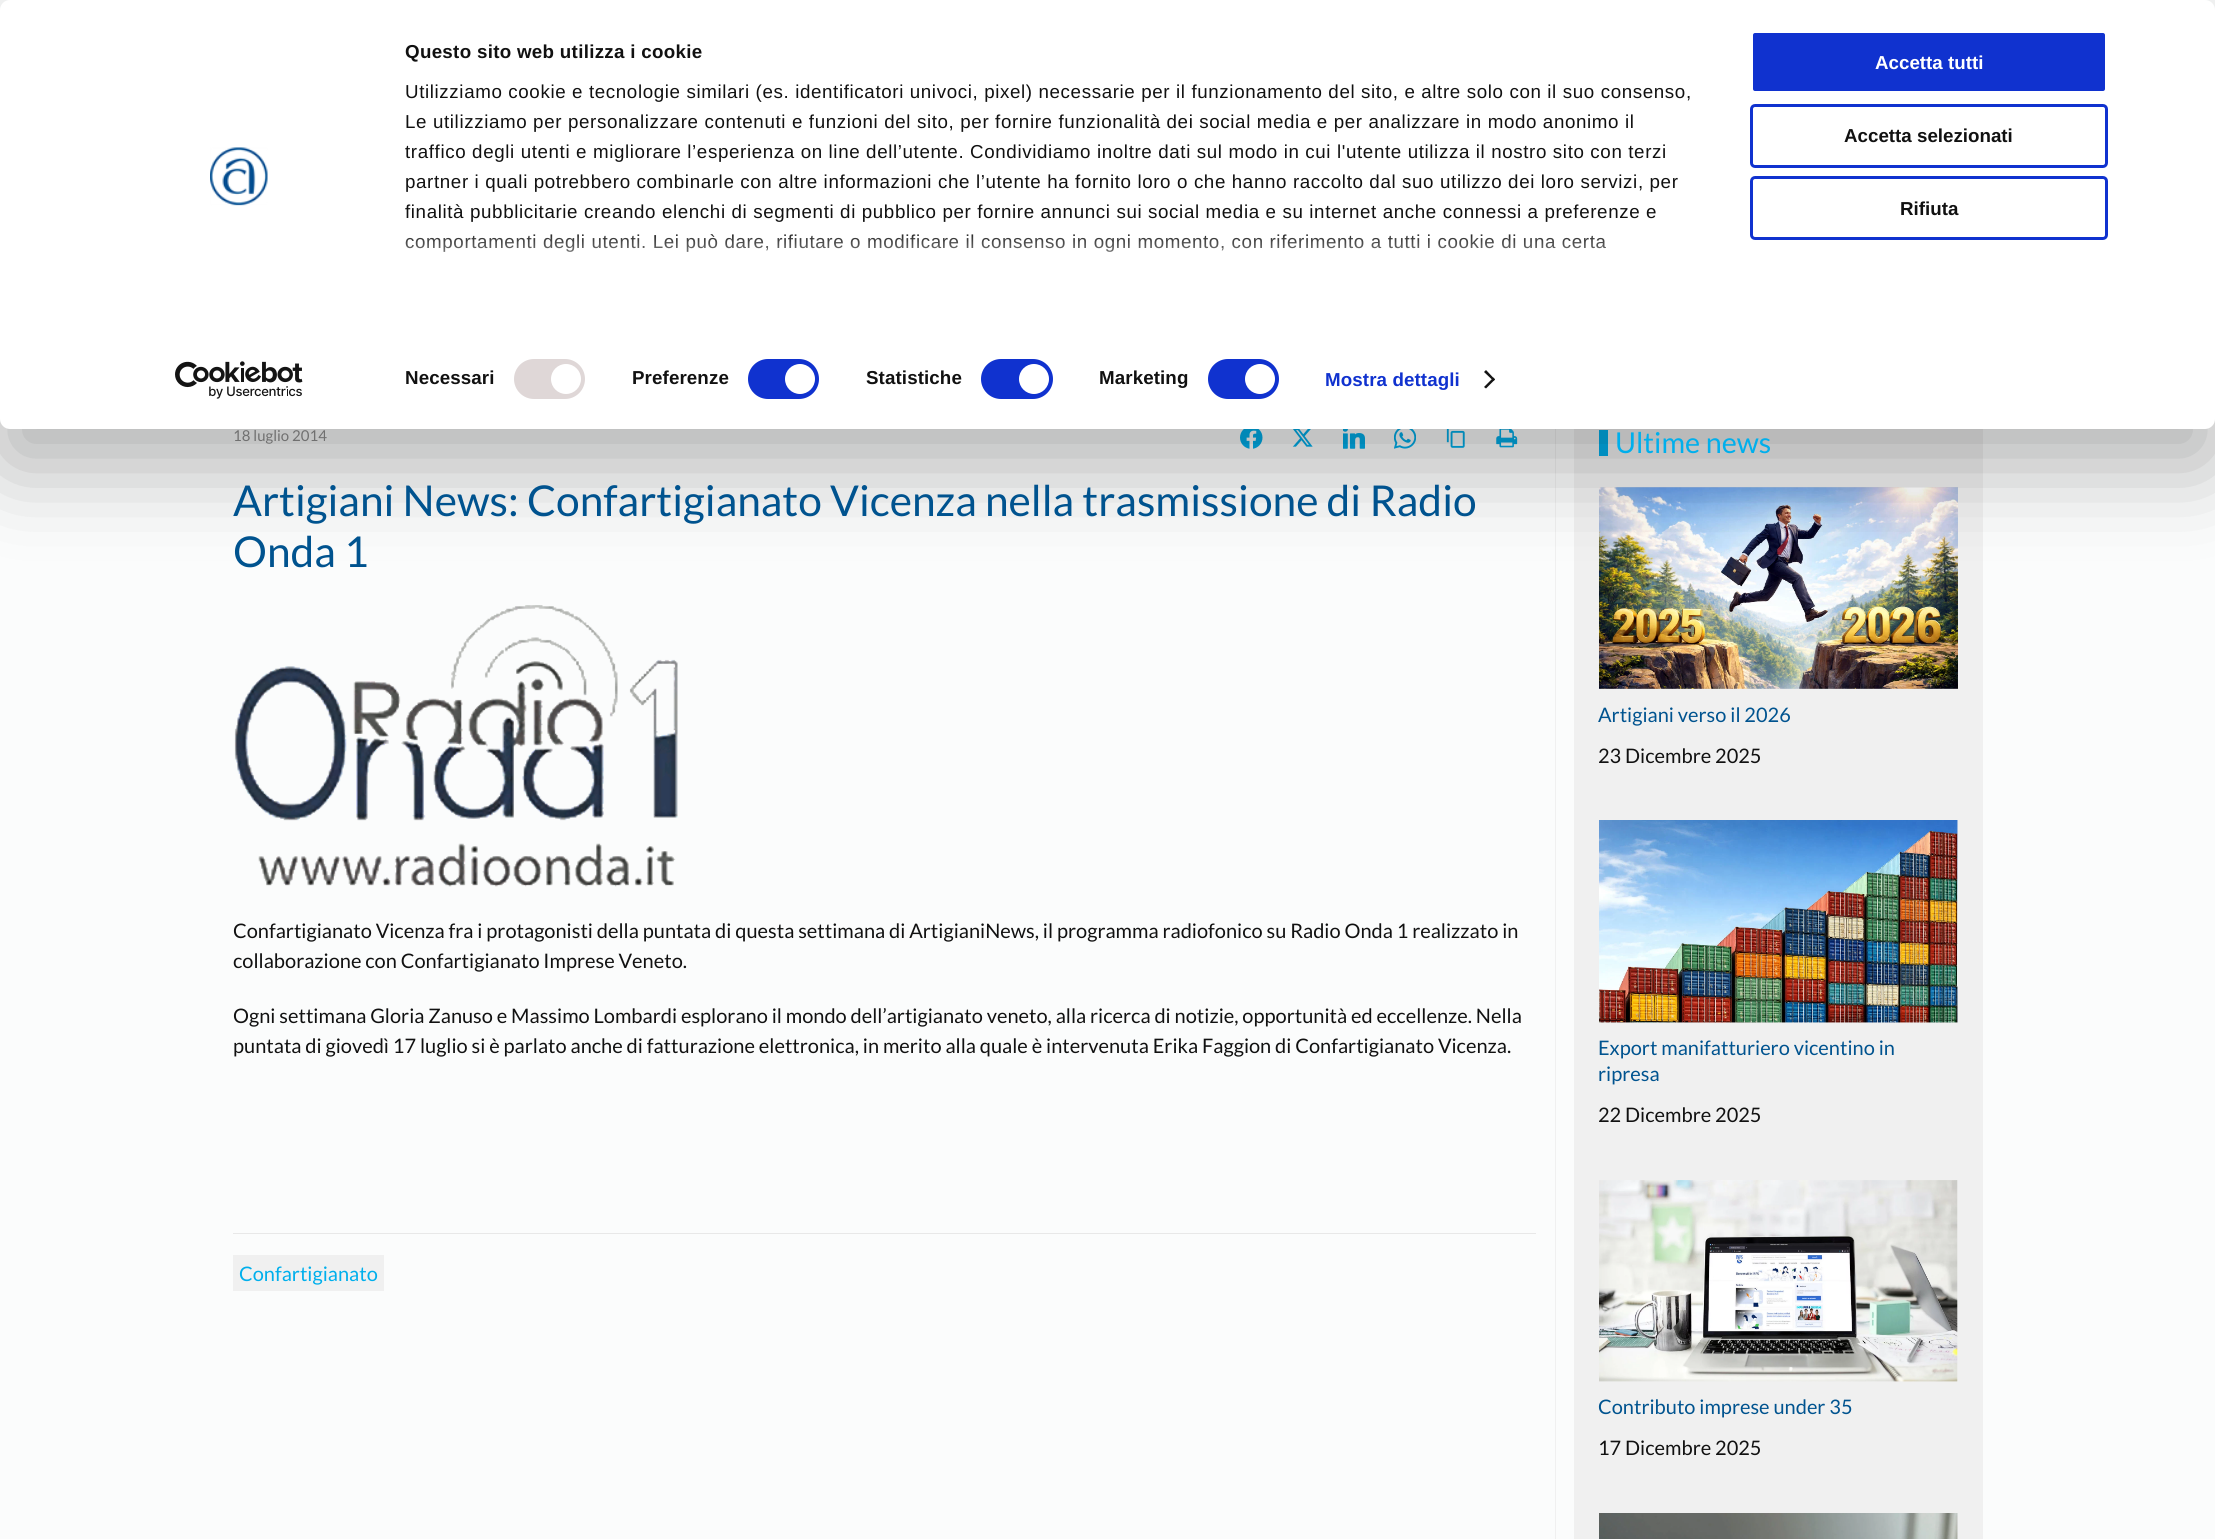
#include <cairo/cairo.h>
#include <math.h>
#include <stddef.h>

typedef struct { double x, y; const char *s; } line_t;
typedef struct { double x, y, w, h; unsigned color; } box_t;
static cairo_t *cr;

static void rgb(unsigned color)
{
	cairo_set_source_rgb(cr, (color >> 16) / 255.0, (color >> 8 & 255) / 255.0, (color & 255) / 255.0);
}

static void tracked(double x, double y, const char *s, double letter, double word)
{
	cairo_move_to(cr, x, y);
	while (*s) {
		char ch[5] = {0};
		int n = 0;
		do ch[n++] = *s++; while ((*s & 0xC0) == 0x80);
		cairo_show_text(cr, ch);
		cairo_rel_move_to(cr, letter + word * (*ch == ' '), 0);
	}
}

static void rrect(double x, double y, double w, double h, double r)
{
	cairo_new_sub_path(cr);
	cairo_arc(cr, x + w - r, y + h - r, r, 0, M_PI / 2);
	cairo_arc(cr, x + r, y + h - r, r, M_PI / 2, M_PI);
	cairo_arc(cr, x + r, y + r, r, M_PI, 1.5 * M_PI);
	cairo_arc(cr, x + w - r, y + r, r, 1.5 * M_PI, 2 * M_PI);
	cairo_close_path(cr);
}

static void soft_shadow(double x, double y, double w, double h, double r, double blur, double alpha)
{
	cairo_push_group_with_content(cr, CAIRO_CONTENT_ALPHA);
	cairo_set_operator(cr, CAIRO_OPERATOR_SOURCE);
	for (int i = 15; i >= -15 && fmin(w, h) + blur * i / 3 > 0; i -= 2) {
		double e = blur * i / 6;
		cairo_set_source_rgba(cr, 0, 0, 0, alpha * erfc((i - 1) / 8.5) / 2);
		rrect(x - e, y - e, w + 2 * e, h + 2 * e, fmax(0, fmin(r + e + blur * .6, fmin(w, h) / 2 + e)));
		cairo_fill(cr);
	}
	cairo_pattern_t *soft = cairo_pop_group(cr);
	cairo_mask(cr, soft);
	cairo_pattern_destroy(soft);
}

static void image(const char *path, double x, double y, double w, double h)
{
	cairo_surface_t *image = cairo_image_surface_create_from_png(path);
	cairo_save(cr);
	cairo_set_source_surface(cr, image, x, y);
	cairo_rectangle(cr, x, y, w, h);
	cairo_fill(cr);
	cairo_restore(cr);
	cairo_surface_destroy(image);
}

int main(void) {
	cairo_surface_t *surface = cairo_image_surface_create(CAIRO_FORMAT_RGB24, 2215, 1539);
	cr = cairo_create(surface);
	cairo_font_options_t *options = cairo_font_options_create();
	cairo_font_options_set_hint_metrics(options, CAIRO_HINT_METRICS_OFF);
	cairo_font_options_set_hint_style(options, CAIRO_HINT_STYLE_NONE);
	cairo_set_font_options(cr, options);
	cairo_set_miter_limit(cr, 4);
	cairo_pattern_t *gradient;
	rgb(0xfbfcfc);
	cairo_paint(cr);
	image("img/3.png", 1240, 429, 23, 20);
	image("img/4.png", 1292, 429, 21, 18);
	image("img/5.png", 1343, 429, 22, 20);
	image("img/6.png", 1394, 429, 22, 20);
	image("img/7.png", 1446, 429, 19, 19);
	image("img/8.png", 1496, 429, 22, 19);
	{
		static const box_t items[] = {
			{1555, 429, 1, 1110, 0xf0f0f0},
			{1574, 429, 409, 1110, 0xf0f0f0},
			{1599, 430, 9, 26, 0x00afec},
		};
		for (size_t i = 0; i < sizeof items / sizeof *items; i++) {
			rgb(items[i].color);
			cairo_rectangle(cr, items[i].x, items[i].y, items[i].w, items[i].h);
			cairo_fill(cr);
		}
	}
	image("img/10.png", 1599, 487, 359, 202);
	rgb(0x000000);
	soft_shadow(0, 38, 2215, 428, 10, 44, 0.3);
	rgb(0xffffff);
	rrect(0, 0, 2215, 429, 10);
	cairo_fill(cr);
	image("img/1.png", 210, 147, 58, 59);
	image("img/2.png", 175, 361, 128, 38);
	rgb(0xdfd7d7);
	rrect(514, 359, 71, 40, 20);
	cairo_fill(cr);
	rgb(0xffffff);
	cairo_arc(cr, 566, 379, 15, 0, 2 * M_PI);
	cairo_fill(cr);
	rgb(0x1032cf);
	rrect(748, 359, 71, 40, 20);
	cairo_fill(cr);
	rgb(0xffffff);
	cairo_arc(cr, 800, 379, 15, 0, 2 * M_PI);
	cairo_fill(cr);
	rgb(0x1032cf);
	rrect(981, 359, 72, 40, 20);
	cairo_fill(cr);
	rgb(0xffffff);
	cairo_arc(cr, 1034, 379, 15, 0, 2 * M_PI);
	cairo_fill(cr);
	rgb(0x1032cf);
	rrect(1208, 359, 71, 40, 20);
	cairo_fill(cr);
	rgb(0xffffff);
	cairo_arc(cr, 1260, 379, 15, 0, 2 * M_PI);
	cairo_fill(cr);
	rgb(0x141414);
	cairo_new_path(cr);
	cairo_move_to(cr, 1486, 370);
	cairo_line_to(cr, 1495, 379.5);
	cairo_line_to(cr, 1493.5, 381);
	cairo_line_to(cr, 1484, 372);
	cairo_close_path(cr);
	cairo_fill(cr);
	cairo_new_path(cr);
	cairo_move_to(cr, 1493.5, 377.5);
	cairo_line_to(cr, 1495, 379.5);
	cairo_line_to(cr, 1486, 388.5);
	cairo_line_to(cr, 1484, 387);
	cairo_close_path(cr);
	cairo_fill(cr);
	rgb(0x1032cf);
	rrect(1751.5, 31.5, 355, 61, 3.5);
	cairo_fill_preserve(cr);
	rgb(0xffffff);
	cairo_set_line_width(cr, 3);
	cairo_stroke(cr);
	rrect(1751.5, 105.5, 355, 61, 3.5);
	rgb(0x1032cf);
	cairo_stroke(cr);
	rrect(1751.5, 177.5, 355, 61, 3.5);
	cairo_stroke(cr);
	image("img/9.png", 234, 605, 444, 282);
	rgb(0xe8e8e8);
	cairo_rectangle(cr, 233, 1233, 1303, 1);
	cairo_fill(cr);
	rgb(0xf0f0f0);
	cairo_rectangle(cr, 233, 1255, 151, 36);
	cairo_fill(cr);
	image("img/11.png", 1599, 820, 359, 203);
	image("img/12.png", 1599, 1180, 359, 202);
	image("img/13.png", 1599, 1513, 359, 26);
	cairo_select_font_face(cr, "Liberation Sans", CAIRO_FONT_SLANT_NORMAL, CAIRO_FONT_WEIGHT_BOLD);
	cairo_set_font_size(cr, 18.75);
	rgb(0x111111);
	tracked(405, 58, "Questo sito web utilizza i cookie", 0.3, 0);
	cairo_select_font_face(cr, "Liberation Sans", CAIRO_FONT_SLANT_NORMAL, CAIRO_FONT_WEIGHT_NORMAL);
	{
		static const line_t items[] = {
			{405, 98, "Utilizziamo cookie e tecnologie similari (es. identificatori univoci, pixel) necessarie per il funzionamento del sito, e altre solo con il suo consenso,"},
			{405, 128, "Le utilizziamo per personalizzare contenuti e funzioni del sito, per fornire funzionalità dei social media e per analizzare in modo anonimo il"},
			{405, 158, "traffico degli utenti e migliorare l’esperienza on line dell’utente. Condividiamo inoltre dati sul modo in cui l'utente utilizza il nostro sito con terzi"},
			{405, 188, "partner i quali potrebbero combinarle con altre informazioni che l’utente ha fornito loro o che hanno raccolto dal suo utilizzo dei loro servizi, per"},
			{405, 218, "finalità pubblicitarie creando elenchi di segmenti di pubblico per fornire annunci sui social media e su internet anche connessi a preferenze e"},
			{405, 248, "comportamenti degli utenti. Lei può dare, rifiutare o modificare il consenso in ogni momento, con riferimento a tutti i cookie di una certa"},
		};
		for (size_t i = 0; i < sizeof items / sizeof *items; i++) {
			tracked(items[i].x, items[i].y, items[i].s, 0.62, 0);
		}
	}
	gradient = cairo_pattern_create_linear(1048, 321, 1048, 228);
	cairo_pattern_add_color_stop_rgba(gradient, 0, 1, 1, 1, 1);
	cairo_pattern_add_color_stop_rgba(gradient, 0.5, 1, 1, 1, 0.8);
	cairo_pattern_add_color_stop_rgba(gradient, 1, 1, 1, 1, 0);
	cairo_set_source(cr, gradient);
	cairo_pattern_destroy(gradient);
	cairo_rectangle(cr, 406, 234, 1201, 18);
	cairo_fill(cr);
	cairo_select_font_face(cr, "Liberation Sans", CAIRO_FONT_SLANT_NORMAL, CAIRO_FONT_WEIGHT_BOLD);
	rgb(0x111111);
	{
		static const line_t items[] = {
			{405, 384, "Necessari"},
			{632, 384, "Preferenze"},
			{866, 384, "Statistiche"},
			{1099, 384, "Marketing"},
		};
		for (size_t i = 0; i < sizeof items / sizeof *items; i++) {
			tracked(items[i].x, items[i].y, items[i].s, 0.1, 0);
		}
	}
	rgb(0x1032cf);
	tracked(1325, 386, "Mostra dettagli", 0.1, 0);
	rgb(0xffffff);
	cairo_move_to(cr, 1875, 69);
	cairo_show_text(cr, "Accetta tutti");
	rgb(0x111111);
	cairo_move_to(cr, 1844, 142);
	cairo_show_text(cr, "Accetta selezionati");
	cairo_move_to(cr, 1900, 215);
	cairo_show_text(cr, "Rifiuta");
	cairo_select_font_face(cr, "Lato", CAIRO_FONT_SLANT_NORMAL, CAIRO_FONT_WEIGHT_NORMAL);
	cairo_set_font_size(cr, 15);
	rgb(0x707070);
	cairo_move_to(cr, 233, 441);
	cairo_show_text(cr, "18 luglio 2014");
	cairo_set_font_size(cr, 42.5);
	rgb(0x00538f);
	cairo_move_to(cr, 233, 516);
	cairo_show_text(cr, "Artigiani News: Confartigianato Vicenza nella trasmissione di Radio");
	cairo_move_to(cr, 233, 567);
	cairo_show_text(cr, "Onda 1");
	cairo_set_font_size(cr, 20);
	rgb(0x111111);
	{
		static const line_t items[] = {
			{233, 938, "Confartigianato Vicenza fra i protagonisti della puntata di questa settimana di ArtigianiNews, il programma radiofonico su Radio Onda 1 realizzato in"},
			{233, 968, "collaborazione con Confartigianato Imprese Veneto."},
			{233, 1023, "Ogni settimana Gloria Zanuso e Massimo Lombardi esplorano il mondo dell’artigianato veneto, alla ricerca di notizie, opportunità ed eccellenze. Nella"},
			{233, 1053, "puntata di giovedì 17 luglio si è parlato anche di fatturazione elettronica, in merito alla quale è intervenuta Erika Faggion di Confartigianato Vicenza."},
		};
		for (size_t i = 0; i < sizeof items / sizeof *items; i++) {
			cairo_move_to(cr, items[i].x, items[i].y);
			cairo_show_text(cr, items[i].s);
		}
	}
	rgb(0x00afec);
	cairo_move_to(cr, 239, 1281);
	cairo_show_text(cr, "Confartigianato");
	cairo_set_font_size(cr, 28.75);
	cairo_move_to(cr, 1615, 453);
	cairo_show_text(cr, "Ultime news");
	cairo_set_font_size(cr, 20);
	rgb(0x00538f);
	cairo_move_to(cr, 1598, 722);
	cairo_show_text(cr, "Artigiani verso il 2026");
	rgb(0x111111);
	cairo_move_to(cr, 1598, 763);
	cairo_show_text(cr, "23 Dicembre 2025");
	rgb(0x00538f);
	cairo_move_to(cr, 1598, 1055);
	cairo_show_text(cr, "Export manifatturiero vicentino in");
	cairo_move_to(cr, 1598, 1081);
	cairo_show_text(cr, "ripresa");
	rgb(0x111111);
	cairo_move_to(cr, 1598, 1122);
	cairo_show_text(cr, "22 Dicembre 2025");
	rgb(0x00538f);
	cairo_move_to(cr, 1598, 1414);
	cairo_show_text(cr, "Contributo imprese under 35");
	rgb(0x111111);
	cairo_move_to(cr, 1598, 1455);
	cairo_show_text(cr, "17 Dicembre 2025");
	cairo_surface_write_to_png(surface, "page.png");
	cairo_font_options_destroy(options);
	cairo_destroy(cr);
	cairo_surface_destroy(surface);
	return 0;
}
